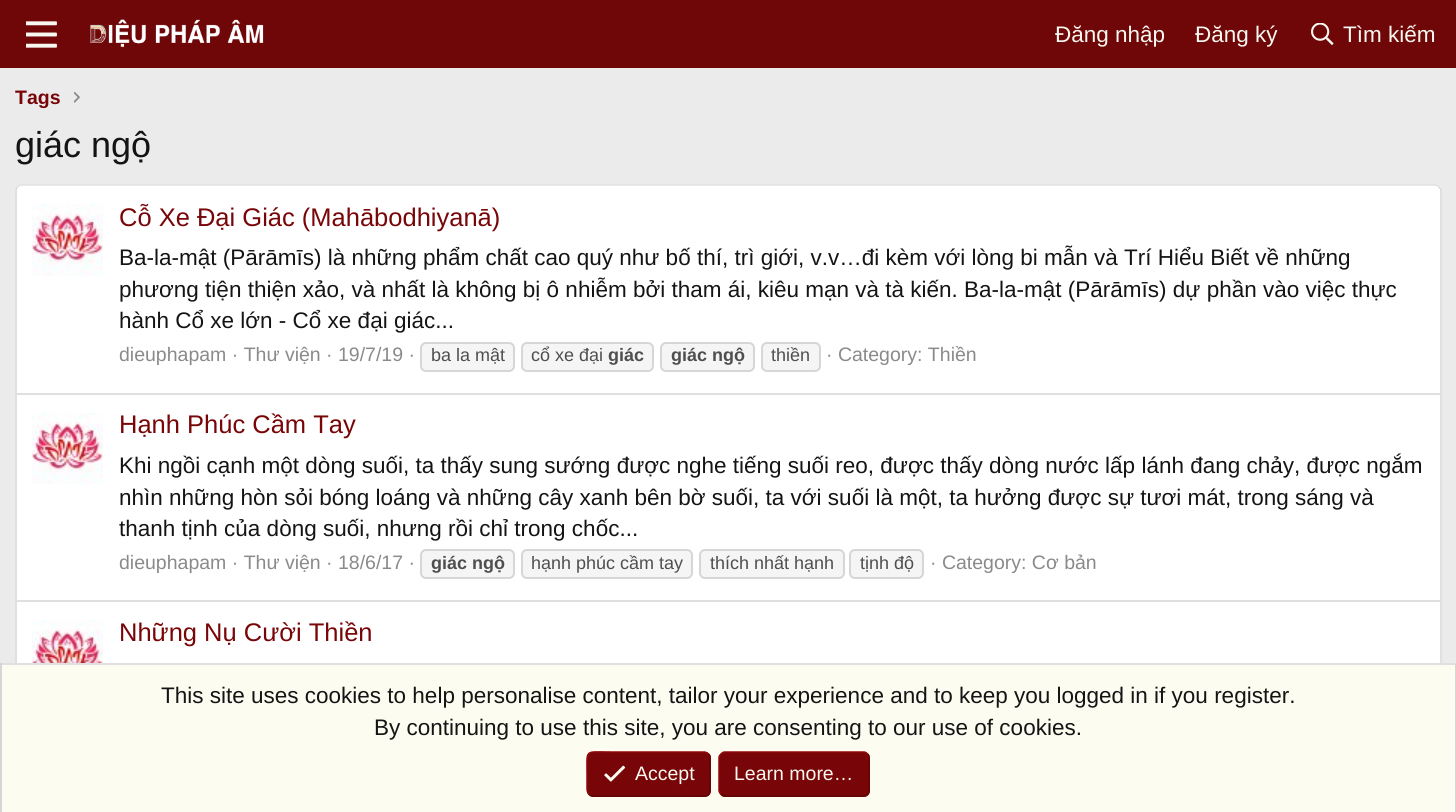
#include <cairo/cairo.h>
#include <math.h>
#include <stddef.h>

typedef struct { double x, y; const char *s; } line_t;
typedef struct { double x, y, w, h; unsigned color; } box_t;
static cairo_t *cr;

static void rgb(unsigned color)
{
	cairo_set_source_rgb(cr, (color >> 16) / 255.0, (color >> 8 & 255) / 255.0, (color & 255) / 255.0);
}

static void rrect(double x, double y, double w, double h, double r)
{
	cairo_new_sub_path(cr);
	cairo_arc(cr, x + w - r, y + h - r, r, 0, M_PI / 2);
	cairo_arc(cr, x + r, y + h - r, r, M_PI / 2, M_PI);
	cairo_arc(cr, x + r, y + r, r, M_PI, 1.5 * M_PI);
	cairo_arc(cr, x + w - r, y + r, r, 1.5 * M_PI, 2 * M_PI);
	cairo_close_path(cr);
}

static void image(const char *path, double x, double y, double w, double h)
{
	cairo_surface_t *image = cairo_image_surface_create_from_png(path);
	cairo_save(cr);
	cairo_set_source_surface(cr, image, x, y);
	cairo_rectangle(cr, x, y, w, h);
	cairo_fill(cr);
	cairo_restore(cr);
	cairo_surface_destroy(image);
}

int main(void) {
	cairo_surface_t *surface = cairo_image_surface_create(CAIRO_FORMAT_RGB24, 1456, 812);
	cr = cairo_create(surface);
	cairo_font_options_t *options = cairo_font_options_create();
	cairo_font_options_set_hint_metrics(options, CAIRO_HINT_METRICS_OFF);
	cairo_font_options_set_hint_style(options, CAIRO_HINT_STYLE_NONE);
	cairo_set_font_options(cr, options);
	cairo_set_miter_limit(cr, 4);
	rgb(0xebebeb);
	cairo_paint(cr);
	rgb(0x6f0608);
	cairo_rectangle(cr, 0, 0, 1456, 68);
	cairo_fill(cr);
	image("img/1.png", 26, 21, 31, 27);
	image("img/2.png", 90, 19, 174, 29);
	image("img/3.png", 1311, 23, 23, 22);
	image("img/4.png", 74, 91, 6, 12);
	rgb(0xffffff);
	rrect(15, 185, 1427, 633, 6);
	cairo_fill(cr);
	cairo_new_path(cr);
	cairo_move_to(cr, 17.5, 187);
	cairo_curve_to(cr, 18.5, 186, 19.5, 185, 21, 185);
	cairo_line_to(cr, 1435.5, 185);
	cairo_curve_to(cr, 1437, 185, 1438, 186, 1439, 187);
	rgb(0xe0e0e0);
	cairo_set_line_width(cr, 1.5);
	cairo_stroke(cr);
	cairo_new_path(cr);
	cairo_move_to(cr, 1439, 187);
	cairo_curve_to(cr, 1440, 188, 1441, 189, 1441, 190.5);
	cairo_line_to(cr, 1441, 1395);
	cairo_curve_to(cr, 1441, 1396.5, 1440, 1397.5, 1439, 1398.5);
	rgb(0xd6d6d6);
	cairo_stroke(cr);
	cairo_new_path(cr);
	cairo_move_to(cr, 17.5, 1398.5);
	cairo_curve_to(cr, 16.5, 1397.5, 16, 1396.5, 16, 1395);
	cairo_line_to(cr, 16, 190.5);
	cairo_curve_to(cr, 16, 189, 16.5, 188, 17.5, 187);
	cairo_stroke(cr);
	image("img/5.png", 32, 204, 71, 72);
	rgb(0xf5f5f5);
	rrect(421, 343, 93, 28, 5);
	cairo_fill_preserve(cr);
	rgb(0xd6d6d6);
	cairo_set_line_width(cr, 2);
	cairo_stroke(cr);
	rgb(0xf5f5f5);
	rrect(522, 343, 131, 28, 5);
	cairo_fill_preserve(cr);
	rgb(0xd6d6d6);
	cairo_stroke(cr);
	rgb(0xf5f5f5);
	rrect(661, 343, 93, 28, 5);
	cairo_fill_preserve(cr);
	rgb(0xd6d6d6);
	cairo_stroke(cr);
	rgb(0xf5f5f5);
	rrect(762, 343, 58, 28, 5);
	cairo_fill_preserve(cr);
	rgb(0xd6d6d6);
	cairo_stroke(cr);
	rgb(0xe0e0e0);
	cairo_rectangle(cr, 17, 393, 1423, 2);
	cairo_fill(cr);
	image("img/6.png", 32, 413, 71, 71);
	rgb(0xf5f5f5);
	rrect(421, 550, 93, 28, 5);
	cairo_fill_preserve(cr);
	rgb(0xd6d6d6);
	cairo_stroke(cr);
	rgb(0xf5f5f5);
	rrect(522, 550, 170, 28, 5);
	cairo_fill_preserve(cr);
	rgb(0xd6d6d6);
	cairo_stroke(cr);
	rgb(0xf5f5f5);
	rrect(700, 550, 144, 28, 5);
	cairo_fill_preserve(cr);
	rgb(0xd6d6d6);
	cairo_stroke(cr);
	rgb(0xf5f5f5);
	rrect(850, 550, 73, 28, 5);
	cairo_fill_preserve(cr);
	rgb(0xd6d6d6);
	cairo_stroke(cr);
	rgb(0xe0e0e0);
	cairo_rectangle(cr, 17, 600, 1423, 2);
	cairo_fill(cr);
	image("img/7.png", 32, 620, 71, 43);
	{
		static const box_t items[] = {
			{2, 665, 1453, 147, 0xfcfcf0},
			{0, 663, 1456, 2, 0xe0e0e0},
			{1455, 663, 1, 149, 0xd6d6d6},
			{0, 663, 2, 149, 0xd6d6d6},
		};
		for (size_t i = 0; i < sizeof items / sizeof *items; i++) {
			rgb(items[i].color);
			cairo_rectangle(cr, items[i].x, items[i].y, items[i].w, items[i].h);
			cairo_fill(cr);
		}
	}
	rgb(0x780608);
	rrect(587, 752, 124, 45, 6);
	cairo_fill(cr);
	cairo_new_path(cr);
	cairo_move_to(cr, 708.5, 754);
	cairo_curve_to(cr, 711, 756, 710, 760, 710, 763);
	cairo_line_to(cr, 710, 774);
	cairo_curve_to(cr, 710, 799.5, 713.5, 796, 686, 796);
	cairo_line_to(cr, 592.5, 796);
	cairo_curve_to(cr, 591, 795.5, 590, 795, 589, 794);
	rgb(0x600506);
	cairo_set_line_width(cr, 1.5);
	cairo_stroke(cr);
	cairo_new_path(cr);
	cairo_move_to(cr, 589, 794);
	cairo_curve_to(cr, 586.5, 792, 587, 788, 587, 785);
	cairo_line_to(cr, 587, 774);
	cairo_curve_to(cr, 587, 748.5, 584, 752, 611, 752);
	cairo_line_to(cr, 705, 752);
	cairo_curve_to(cr, 706.5, 752.5, 707.5, 753, 708.5, 754);
	rgb(0x90070a);
	cairo_stroke(cr);
	image("img/8.png", 604, 765, 22, 17);
	rgb(0x780608);
	rrect(719, 752, 151, 45, 6);
	cairo_fill(cr);
	cairo_new_path(cr);
	cairo_move_to(cr, 867.5, 754);
	cairo_curve_to(cr, 868.5, 755, 869, 756, 869, 757.5);
	cairo_line_to(cr, 869, 790.5);
	cairo_curve_to(cr, 869, 792, 868.5, 793, 867.5, 794);
	cairo_curve_to(cr, 866.5, 795, 865.5, 796, 864, 796);
	cairo_line_to(cr, 724.5, 796);
	cairo_curve_to(cr, 723, 796, 722, 795, 721, 794);
	rgb(0x600506);
	cairo_stroke(cr);
	cairo_new_path(cr);
	cairo_move_to(cr, 721, 794);
	cairo_curve_to(cr, 720, 793, 719, 792, 719, 790.5);
	cairo_line_to(cr, 719, 757.5);
	cairo_curve_to(cr, 719, 756, 720, 755, 721, 754);
	cairo_curve_to(cr, 722, 753, 723, 752, 724.5, 752);
	cairo_line_to(cr, 864, 752);
	cairo_curve_to(cr, 865.5, 752, 866.5, 753, 867.5, 754);
	rgb(0x90070a);
	cairo_stroke(cr);
	cairo_select_font_face(cr, "Liberation Sans", CAIRO_FONT_SLANT_NORMAL, CAIRO_FONT_WEIGHT_NORMAL);
	cairo_set_font_size(cr, 22.5);
	rgb(0xf8f8f0);
	{
		static const line_t items[] = {
			{1055, 42, "Đăng nhập"},
			{1195, 42, "Đăng ký"},
			{1343, 42, "Tìm kiếm"},
		};
		for (size_t i = 0; i < sizeof items / sizeof *items; i++) {
			cairo_move_to(cr, items[i].x, items[i].y);
			cairo_show_text(cr, items[i].s);
		}
	}
	cairo_select_font_face(cr, "Liberation Sans", CAIRO_FONT_SLANT_NORMAL, CAIRO_FONT_WEIGHT_BOLD);
	cairo_set_font_size(cr, 19.5);
	rgb(0x780608);
	cairo_move_to(cr, 15, 104);
	cairo_show_text(cr, "Tags");
	cairo_select_font_face(cr, "Liberation Sans", CAIRO_FONT_SLANT_NORMAL, CAIRO_FONT_WEIGHT_NORMAL);
	cairo_set_font_size(cr, 36);
	rgb(0x141414);
	cairo_move_to(cr, 15, 157);
	cairo_show_text(cr, "giác ngộ");
	cairo_set_font_size(cr, 25.5);
	rgb(0x780608);
	cairo_move_to(cr, 119, 226);
	cairo_show_text(cr, "Cỗ Xe Đại Giác (Mahābodhiyanā)");
	cairo_set_font_size(cr, 22.5);
	rgb(0x141414);
	{
		static const line_t items[] = {
			{119, 265, "Ba-la-mật (Pārāmīs) là những phẩm chất cao quý như bố thí, trì giới, v.v…đi kèm với lòng bi mẫn và Trí Hiểu Biết về những"},
			{119, 297, "phương tiện thiện xảo, và nhất là không bị ô nhiễm bởi tham ái, kiêu mạn và tà kiến. Ba-la-mật (Pārāmīs) dự phần vào việc thực"},
			{119, 328, "hành Cổ xe lớn - Cổ xe đại giác..."},
		};
		for (size_t i = 0; i < sizeof items / sizeof *items; i++) {
			cairo_move_to(cr, items[i].x, items[i].y);
			cairo_show_text(cr, items[i].s);
		}
	}
	cairo_set_font_size(cr, 19.5);
	rgb(0x8a8a8a);
	cairo_move_to(cr, 119, 361);
	cairo_show_text(cr, "dieuphapam · Thư viện · 19/7/19 ·");
	cairo_set_font_size(cr, 18);
	rgb(0x4f4f4f);
	cairo_move_to(cr, 431, 361);
	cairo_show_text(cr, "ba la mật");
	cairo_move_to(cr, 531, 361);
	cairo_show_text(cr, "cổ xe đại");
	cairo_select_font_face(cr, "Liberation Sans", CAIRO_FONT_SLANT_NORMAL, CAIRO_FONT_WEIGHT_BOLD);
	cairo_move_to(cr, 608, 361);
	cairo_show_text(cr, "giác");
	cairo_move_to(cr, 671, 361);
	cairo_show_text(cr, "giác ngộ");
	cairo_select_font_face(cr, "Liberation Sans", CAIRO_FONT_SLANT_NORMAL, CAIRO_FONT_WEIGHT_NORMAL);
	cairo_move_to(cr, 771, 361);
	cairo_show_text(cr, "thiền");
	cairo_set_font_size(cr, 19.5);
	rgb(0x8a8a8a);
	cairo_move_to(cr, 826, 361);
	cairo_show_text(cr, "· Category: Thiền");
	cairo_set_font_size(cr, 25.5);
	rgb(0x780608);
	cairo_move_to(cr, 119, 433);
	cairo_show_text(cr, "Hạnh Phúc Cầm Tay");
	cairo_set_font_size(cr, 22.5);
	rgb(0x141414);
	{
		static const line_t items[] = {
			{119, 473, "Khi ngồi cạnh một dòng suối, ta thấy sung sướng được nghe tiếng suối reo, được thấy dòng nước lấp lánh đang chảy, được ngắm"},
			{119, 505, "nhìn những hòn sỏi bóng loáng và những cây xanh bên bờ suối, ta với suối là một, ta hưởng được sự tươi mát, trong sáng và"},
			{119, 536, "thanh tịnh của dòng suối, nhưng rồi chỉ trong chốc..."},
		};
		for (size_t i = 0; i < sizeof items / sizeof *items; i++) {
			cairo_move_to(cr, items[i].x, items[i].y);
			cairo_show_text(cr, items[i].s);
		}
	}
	cairo_set_font_size(cr, 19.5);
	rgb(0x8a8a8a);
	cairo_move_to(cr, 119, 569);
	cairo_show_text(cr, "dieuphapam · Thư viện · 18/6/17 ·");
	cairo_select_font_face(cr, "Liberation Sans", CAIRO_FONT_SLANT_NORMAL, CAIRO_FONT_WEIGHT_BOLD);
	cairo_set_font_size(cr, 18);
	rgb(0x4f4f4f);
	cairo_move_to(cr, 431, 569);
	cairo_show_text(cr, "giác ngộ");
	cairo_select_font_face(cr, "Liberation Sans", CAIRO_FONT_SLANT_NORMAL, CAIRO_FONT_WEIGHT_NORMAL);
	{
		static const line_t items[] = {
			{531, 569, "hạnh phúc cầm tay"},
			{710, 569, "thích nhất hạnh"},
			{860, 569, "tịnh độ"},
		};
		for (size_t i = 0; i < sizeof items / sizeof *items; i++) {
			cairo_move_to(cr, items[i].x, items[i].y);
			cairo_show_text(cr, items[i].s);
		}
	}
	cairo_set_font_size(cr, 19.5);
	rgb(0x8a8a8a);
	cairo_move_to(cr, 930, 569);
	cairo_show_text(cr, "· Category: Cơ bản");
	cairo_set_font_size(cr, 25.5);
	rgb(0x780608);
	cairo_move_to(cr, 119, 641);
	cairo_show_text(cr, "Những Nụ Cười Thiền");
	cairo_set_font_size(cr, 22.5);
	rgb(0x141414);
	cairo_move_to(cr, 161, 703);
	cairo_show_text(cr, "This site uses cookies to help personalise content, tailor your experience and to keep you logged in if you register.");
	cairo_move_to(cr, 374, 735);
	cairo_show_text(cr, "By continuing to use this site, you are consenting to our use of cookies.");
	cairo_set_font_size(cr, 19.5);
	rgb(0xf8f8f0);
	cairo_move_to(cr, 635, 780);
	cairo_show_text(cr, "Accept");
	cairo_move_to(cr, 734, 780);
	cairo_show_text(cr, "Learn more…");
	cairo_surface_write_to_png(surface, "page.png");
	cairo_font_options_destroy(options);
	cairo_destroy(cr);
	cairo_surface_destroy(surface);
	return 0;
}
